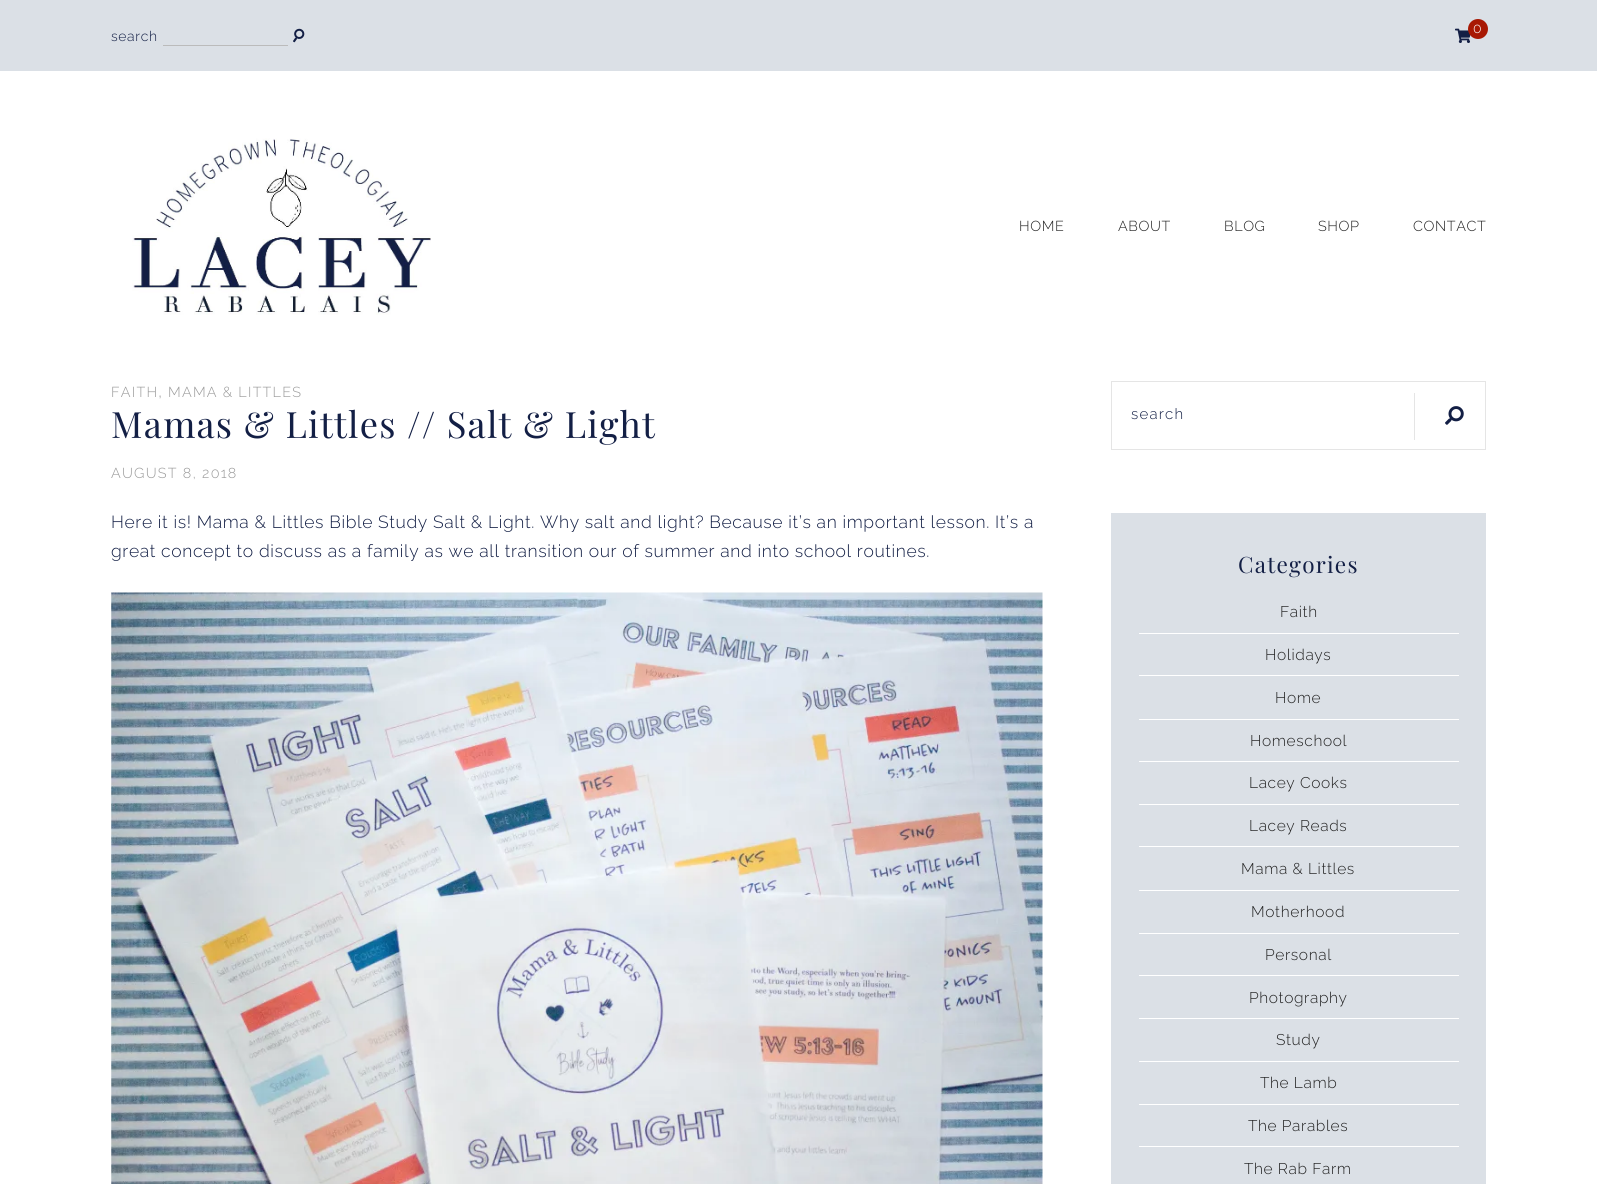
#include <cairo/cairo.h>
#include <math.h>
#include <stddef.h>

typedef struct { double x, y; const char *s; } line_t;
typedef struct { double x, y, w, h; unsigned color; } box_t;
static cairo_t *cr;

static void rgb(unsigned color)
{
	cairo_set_source_rgb(cr, (color >> 16) / 255.0, (color >> 8 & 255) / 255.0, (color & 255) / 255.0);
}

static void tracked(double x, double y, const char *s, double letter, double word)
{
	cairo_move_to(cr, x, y);
	while (*s) {
		char ch[5] = {0};
		int n = 0;
		do ch[n++] = *s++; while ((*s & 0xC0) == 0x80);
		cairo_show_text(cr, ch);
		cairo_rel_move_to(cr, letter + word * (*ch == ' '), 0);
	}
}

static void image(const char *path, double x, double y, double w, double h)
{
	cairo_surface_t *image = cairo_image_surface_create_from_png(path);
	cairo_save(cr);
	cairo_set_source_surface(cr, image, x, y);
	cairo_rectangle(cr, x, y, w, h);
	cairo_fill(cr);
	cairo_restore(cr);
	cairo_surface_destroy(image);
}

int main(void) {
	cairo_surface_t *surface = cairo_image_surface_create(CAIRO_FORMAT_RGB24, 1597, 1184);
	cr = cairo_create(surface);
	cairo_font_options_t *options = cairo_font_options_create();
	cairo_font_options_set_hint_metrics(options, CAIRO_HINT_METRICS_OFF);
	cairo_font_options_set_hint_style(options, CAIRO_HINT_STYLE_NONE);
	cairo_set_font_options(cr, options);
	cairo_set_miter_limit(cr, 4);
	rgb(0xffffff);
	cairo_paint(cr);
	rgb(0xdbe0e6);
	cairo_rectangle(cr, 0, 0, 1597, 71);
	cairo_fill(cr);
	image("img/1.png", 1455, 28, 16, 15);
	rgb(0xa81803);
	cairo_arc(cr, 1478, 29, 10, 0, 2 * M_PI);
	cairo_fill(cr);
	image("img/2.png", 293, 28, 12, 15);
	rgb(0xbbbbbb);
	cairo_rectangle(cr, 163, 45, 125, 1);
	cairo_fill(cr);
	image("img/3.png", 132, 138, 299, 177);
	image("img/4.png", 111, 592, 932, 592);
	cairo_rectangle(cr, 1111.5, 381.5, 374, 68);
	rgb(0xe5e5e5);
	cairo_set_line_width(cr, 1);
	cairo_stroke(cr);
	image("img/5.png", 1445, 406, 19, 19);
	{
		static const box_t items[] = {
			{1414, 393, 1, 47, 0xe5e5e5},
			{1111, 513, 375, 671, 0xdbe0e6},
			{1139, 633, 320, 1, 0xffffff},
			{1139, 675, 320, 1, 0xffffff},
			{1139, 719, 320, 1, 0xffffff},
			{1139, 761, 320, 1, 0xffffff},
			{1139, 804, 320, 1, 0xffffff},
			{1139, 846, 320, 1, 0xffffff},
			{1139, 890, 320, 1, 0xffffff},
			{1139, 933, 320, 1, 0xffffff},
			{1139, 975, 320, 1, 0xffffff},
			{1139, 1018, 320, 1, 0xffffff},
			{1139, 1061, 320, 1, 0xffffff},
			{1139, 1104, 320, 1, 0xffffff},
			{1139, 1146, 320, 1, 0xffffff},
		};
		for (size_t i = 0; i < sizeof items / sizeof *items; i++) {
			rgb(items[i].color);
			cairo_rectangle(cr, items[i].x, items[i].y, items[i].w, items[i].h);
			cairo_fill(cr);
		}
	}
	cairo_select_font_face(cr, "Raleway Light", CAIRO_FONT_SLANT_NORMAL, CAIRO_FONT_WEIGHT_NORMAL);
	cairo_set_font_size(cr, 14);
	tracked(1473, 33, "0", 0.62, 0);
	rgb(0x131f45);
	tracked(111, 41, "search", 0.62, 0);
	cairo_set_font_size(cr, 14.4);
	rgb(0x222222);
	{
		static const line_t items[] = {
			{1019, 231, "HOME"},
			{1118, 231, "ABOUT"},
			{1224, 231, "BLOG"},
			{1318, 231, "SHOP"},
			{1413, 231, "CONTACT"},
		};
		for (size_t i = 0; i < sizeof items / sizeof *items; i++) {
			tracked(items[i].x, items[i].y, items[i].s, 0.62, 0);
		}
	}
	rgb(0x999999);
	tracked(111, 397, "FAITH", 1.25, 0);
	cairo_set_font_size(cr, 17.5);
	tracked(158, 397, ",", 0.62, 0);
	cairo_set_font_size(cr, 14.4);
	tracked(168, 397, "MAMA & LITTLES", 1.25, 0);
	cairo_select_font_face(cr, "Playfair Display", CAIRO_FONT_SLANT_NORMAL, CAIRO_FONT_WEIGHT_NORMAL);
	cairo_set_font_size(cr, 36.25);
	rgb(0x131f45);
	tracked(111, 438, "Mamas & Littles // Salt & Light", 1.25, 0);
	cairo_select_font_face(cr, "Raleway Light", CAIRO_FONT_SLANT_NORMAL, CAIRO_FONT_WEIGHT_NORMAL);
	cairo_set_font_size(cr, 14.4);
	rgb(0x999999);
	tracked(111, 478, "AUGUST 8, 2018", 1.25, 0);
	cairo_set_font_size(cr, 17.5);
	rgb(0x131f45);
	tracked(111, 528, "Here it is! Mama & Littles Bible Study Salt & Light. Why salt and light? Because it’s an important lesson. It’s a", 0.62, 0);
	tracked(111, 557, "great concept to discuss as a family as we all transition our of summer and into school routines.", 0.62, 0);
	cairo_set_font_size(cr, 15);
	tracked(1131, 419, "search", 1.25, 0);
	cairo_select_font_face(cr, "Playfair Display", CAIRO_FONT_SLANT_NORMAL, CAIRO_FONT_WEIGHT_NORMAL);
	cairo_set_font_size(cr, 22.5);
	tracked(1238, 573, "Categories", 1.25, 0);
	cairo_select_font_face(cr, "Raleway Light", CAIRO_FONT_SLANT_NORMAL, CAIRO_FONT_WEIGHT_NORMAL);
	cairo_set_font_size(cr, 15.5);
	rgb(0x222222);
	{
		static const line_t items[] = {
			{1280, 617, "Faith"},
			{1265, 660, "Holidays"},
			{1275, 703, "Home"},
			{1250, 746, "Homeschool"},
			{1249, 788, "Lacey Cooks"},
			{1249, 831, "Lacey Reads"},
			{1241, 874, "Mama & Littles"},
			{1251, 917, "Motherhood"},
			{1265, 960, "Personal"},
			{1249, 1003, "Photography"},
			{1276, 1045, "Study"},
			{1260, 1088, "The Lamb"},
			{1248, 1131, "The Parables"},
			{1244, 1174, "The Rab Farm"},
		};
		for (size_t i = 0; i < sizeof items / sizeof *items; i++) {
			tracked(items[i].x, items[i].y, items[i].s, 0.62, 0);
		}
	}
	cairo_surface_write_to_png(surface, "page.png");
	cairo_font_options_destroy(options);
	cairo_destroy(cr);
	cairo_surface_destroy(surface);
	return 0;
}
